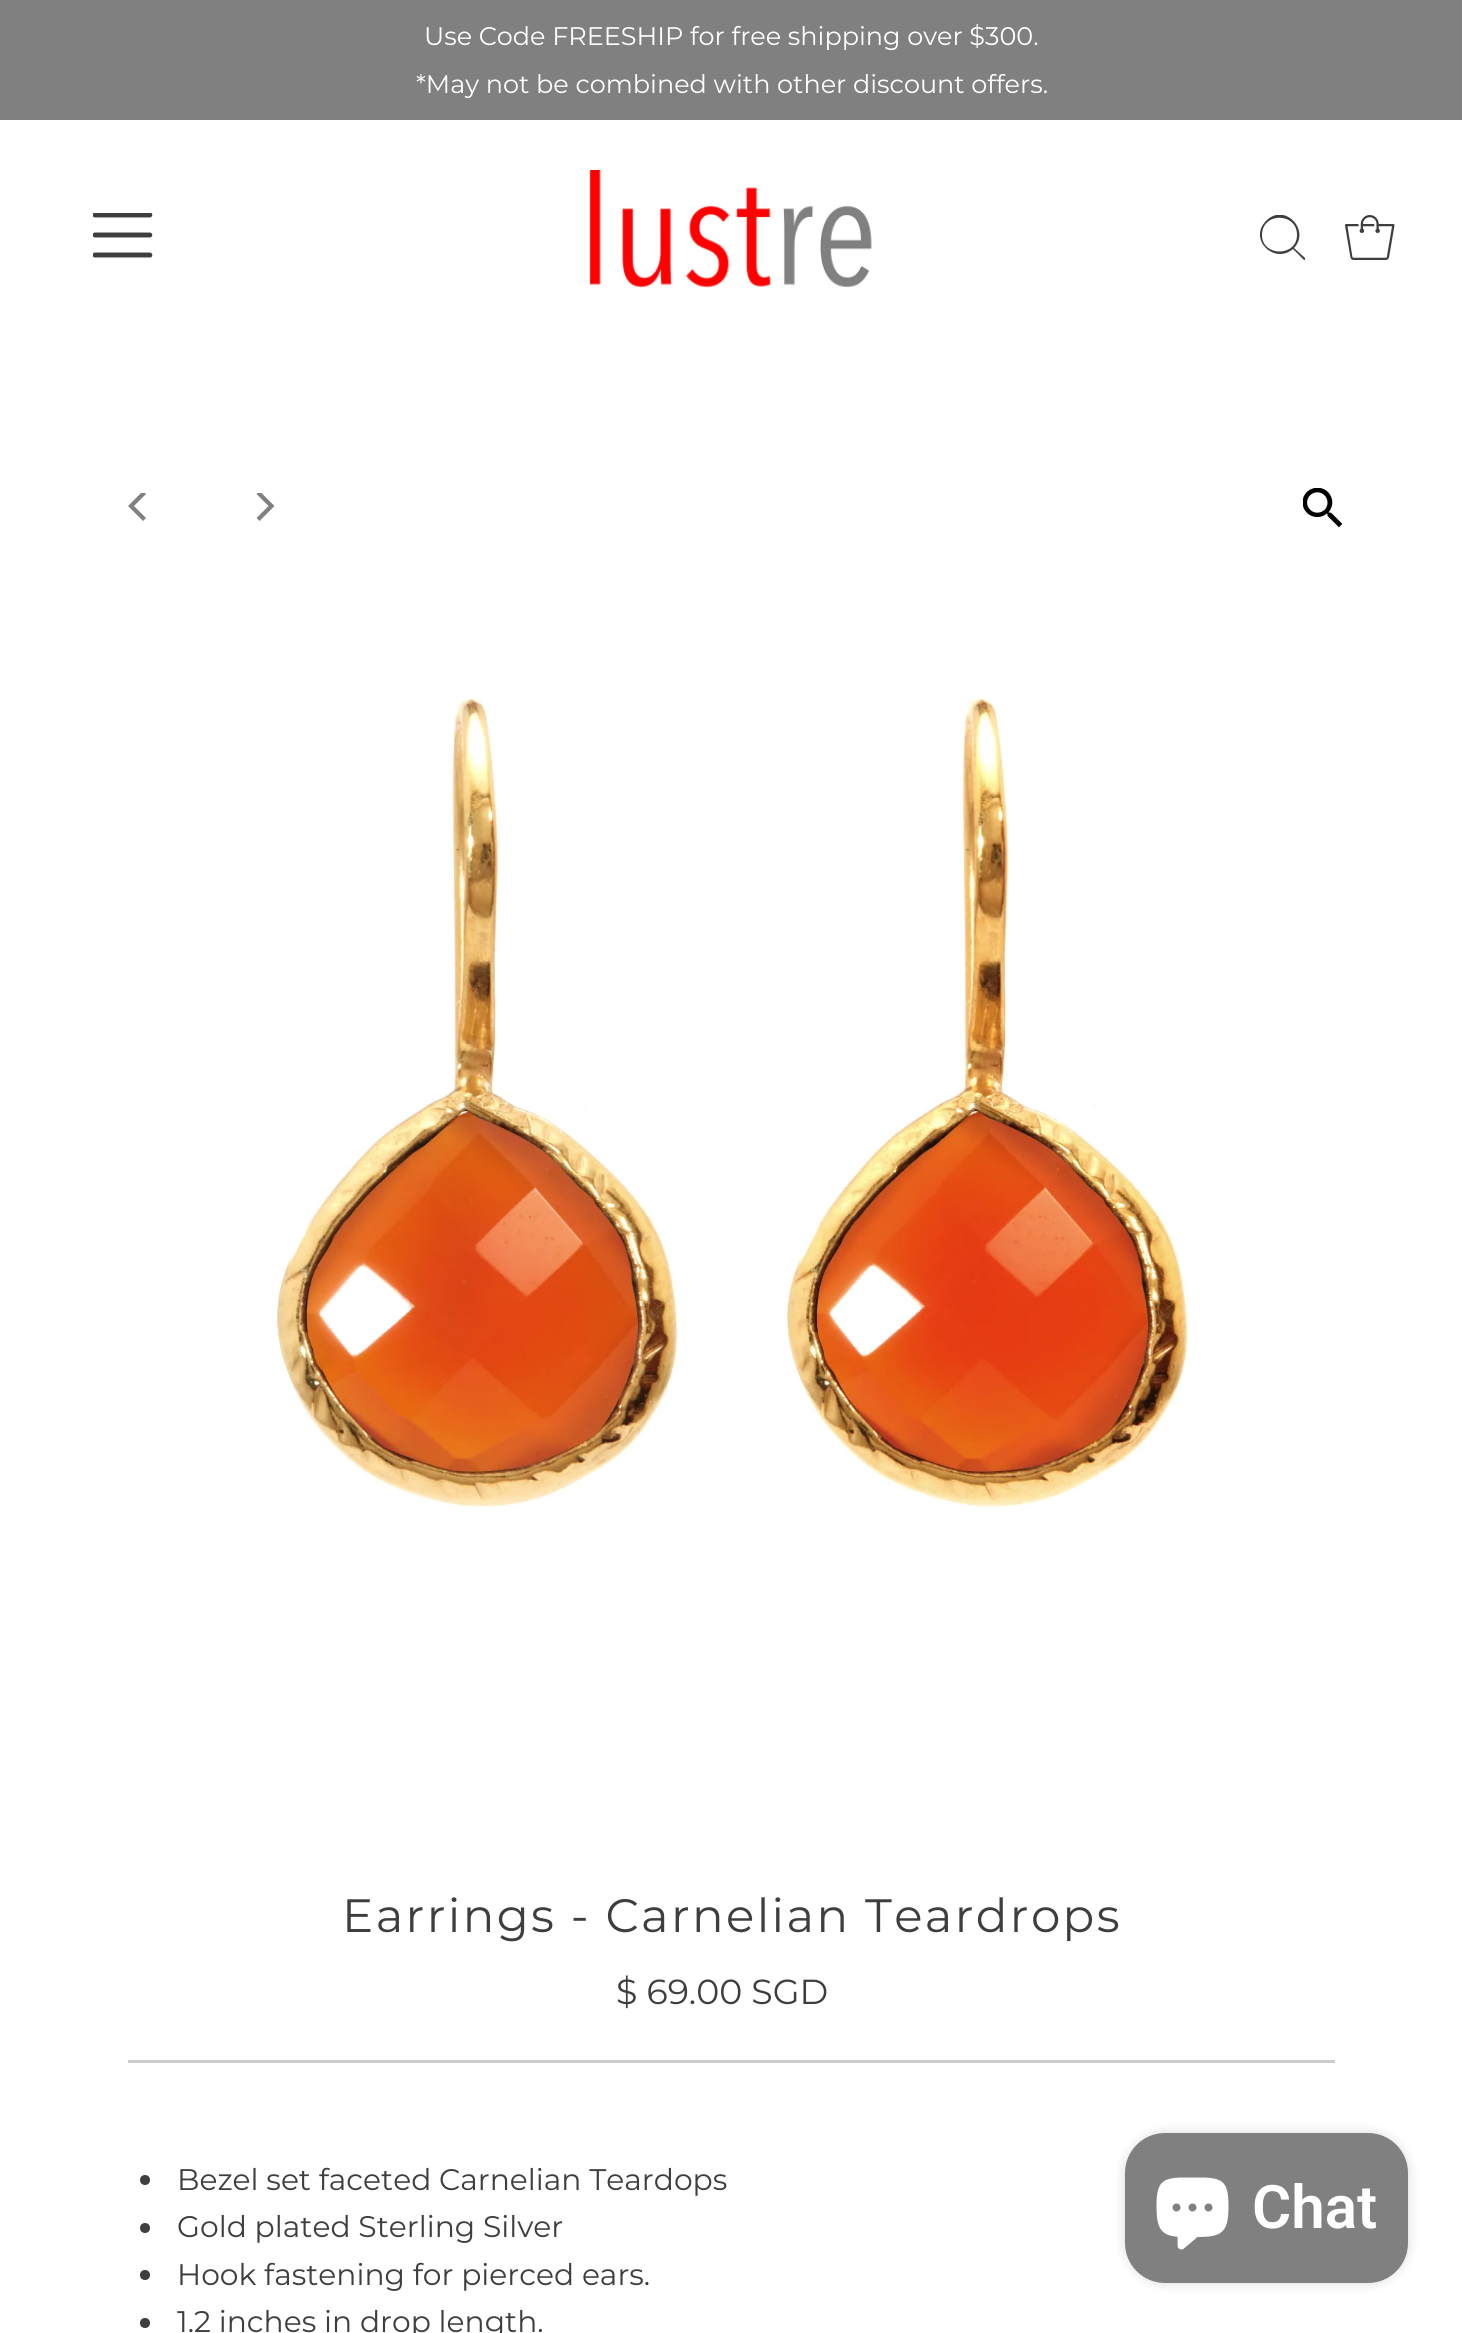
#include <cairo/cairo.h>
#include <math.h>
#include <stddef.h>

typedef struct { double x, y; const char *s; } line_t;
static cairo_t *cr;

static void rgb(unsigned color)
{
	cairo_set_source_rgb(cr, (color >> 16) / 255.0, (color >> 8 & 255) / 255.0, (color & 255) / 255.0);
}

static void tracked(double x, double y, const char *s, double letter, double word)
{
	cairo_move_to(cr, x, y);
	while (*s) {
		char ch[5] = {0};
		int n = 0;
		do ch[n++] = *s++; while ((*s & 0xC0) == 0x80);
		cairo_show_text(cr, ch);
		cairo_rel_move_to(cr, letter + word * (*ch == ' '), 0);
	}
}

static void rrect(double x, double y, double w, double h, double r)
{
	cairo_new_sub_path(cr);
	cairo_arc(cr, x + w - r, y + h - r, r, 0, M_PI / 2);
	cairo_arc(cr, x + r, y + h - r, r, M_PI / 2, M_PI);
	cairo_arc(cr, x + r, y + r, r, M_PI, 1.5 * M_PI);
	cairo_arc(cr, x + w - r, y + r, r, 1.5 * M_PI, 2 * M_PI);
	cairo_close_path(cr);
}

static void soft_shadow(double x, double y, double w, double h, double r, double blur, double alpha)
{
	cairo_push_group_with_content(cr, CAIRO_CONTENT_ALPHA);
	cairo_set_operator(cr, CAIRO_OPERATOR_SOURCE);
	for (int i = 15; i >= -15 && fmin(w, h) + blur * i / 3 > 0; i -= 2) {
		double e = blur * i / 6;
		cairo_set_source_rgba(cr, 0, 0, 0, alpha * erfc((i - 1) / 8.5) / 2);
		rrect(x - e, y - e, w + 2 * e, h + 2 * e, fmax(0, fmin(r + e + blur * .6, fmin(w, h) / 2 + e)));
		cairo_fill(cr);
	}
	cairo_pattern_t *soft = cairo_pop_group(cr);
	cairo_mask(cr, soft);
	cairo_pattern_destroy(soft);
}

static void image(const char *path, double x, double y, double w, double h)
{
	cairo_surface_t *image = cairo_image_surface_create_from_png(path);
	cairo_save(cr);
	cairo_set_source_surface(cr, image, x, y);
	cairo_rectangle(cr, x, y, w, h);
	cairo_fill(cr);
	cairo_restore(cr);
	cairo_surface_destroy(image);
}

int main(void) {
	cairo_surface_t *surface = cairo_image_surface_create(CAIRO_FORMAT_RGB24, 1462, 2333);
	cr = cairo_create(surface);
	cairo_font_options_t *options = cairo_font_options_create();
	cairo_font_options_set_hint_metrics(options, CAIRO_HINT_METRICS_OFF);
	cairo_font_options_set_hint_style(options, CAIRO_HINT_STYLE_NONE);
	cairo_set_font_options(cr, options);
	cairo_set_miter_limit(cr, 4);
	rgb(0xffffff);
	cairo_paint(cr);
	rgb(0x808080);
	cairo_rectangle(cr, 0, 0, 1462, 120);
	cairo_fill(cr);
	image("img/1.png", 93, 213, 60, 45);
	image("img/2.png", 589, 170, 283, 118);
	cairo_save(cr);
	cairo_rectangle(cr, 1260, 215, 45, 45);
	cairo_clip(cr);
	rgb(0x3e3e3e);
	cairo_new_path(cr);
	cairo_move_to(cr, 1305, 258);
	cairo_line_to(cr, 1294, 248);
	cairo_curve_to(cr, 1311, 230, 1284, 202, 1266, 221);
	cairo_curve_to(cr, 1248, 239, 1274, 265, 1293, 249);
	cairo_line_to(cr, 1304, 260);
	cairo_curve_to(cr, 1305, 260, 1306, 259, 1305, 258);
	cairo_close_path(cr);
	cairo_move_to(cr, 1262, 235);
	cairo_curve_to(cr, 1262, 212, 1297, 212, 1297, 235);
	cairo_curve_to(cr, 1297, 257, 1262, 257, 1262, 235);
	cairo_close_path(cr);
	cairo_fill(cr);
	cairo_restore(cr);
	image("img/3.png", 1345, 215, 50, 45);
	cairo_save(cr);
	cairo_rectangle(cr, 125, 493, 30, 30);
	cairo_clip(cr);
	cairo_new_path(cr);
	cairo_move_to(cr, 128, 506);
	cairo_line_to(cr, 143, 521);
	cairo_line_to(cr, 146, 518);
	cairo_line_to(cr, 134, 506);
	cairo_line_to(cr, 146, 494);
	cairo_line_to(cr, 143, 491);
	cairo_close_path(cr);
	cairo_fill(cr);
	cairo_restore(cr);
	cairo_save(cr);
	cairo_rectangle(cr, 248, 493, 30, 30);
	cairo_clip(cr);
	cairo_new_path(cr);
	cairo_move_to(cr, 274.5, 506);
	cairo_line_to(cr, 259.5, 491);
	cairo_line_to(cr, 256.5, 494);
	cairo_line_to(cr, 268.5, 506);
	cairo_line_to(cr, 256.5, 518);
	cairo_line_to(cr, 259.5, 521);
	cairo_close_path(cr);
	cairo_fill(cr);
	cairo_restore(cr);
	image("img/4.png", 1303, 488, 40, 40);
	image("img/5.png", 275, 698, 913, 810);
	rgb(0xcccccc);
	cairo_rectangle(cr, 128, 2060, 1207, 3);
	cairo_fill(cr);
	rgb(0x3e3e3e);
	cairo_arc(cr, 145, 2180, 5, 0, 2 * M_PI);
	cairo_fill(cr);
	cairo_arc(cr, 145, 2228, 5, 0, 2 * M_PI);
	cairo_fill(cr);
	cairo_arc(cr, 145, 2275, 5, 0, 2 * M_PI);
	cairo_fill(cr);
	cairo_arc(cr, 145, 2323, 5, 0, 2 * M_PI);
	cairo_fill(cr);
	rgb(0x000000);
	soft_shadow(1125, 2133, 283, 150, 40, 6, 0.15);
	rgb(0x808080);
	rrect(1125, 2133, 283, 150, 40);
	cairo_fill(cr);
	image("img/6.png", 1156, 2177, 73, 73);
	cairo_select_font_face(cr, "Montserrat", CAIRO_FONT_SLANT_NORMAL, CAIRO_FONT_WEIGHT_NORMAL);
	cairo_set_font_size(cr, 25.5);
	rgb(0xffffff);
	cairo_move_to(cr, 424, 45);
	cairo_show_text(cr, "Use Code FREESHIP for free shipping over $300.");
	cairo_move_to(cr, 416, 93);
	cairo_show_text(cr, "*May not be combined with other discount offers.");
	cairo_set_font_size(cr, 46.75);
	rgb(0x3e3e3e);
	tracked(342, 1932, "Earrings - Carnelian Teardrops", 2.35, 0);
	cairo_set_font_size(cr, 34.75);
	cairo_move_to(cr, 616, 2004);
	cairo_show_text(cr, "$ 69.00 SGD");
	cairo_set_font_size(cr, 29.75);
	{
		static const line_t items[] = {
			{177, 2190, "Bezel set faceted Carnelian Teardops"},
			{177, 2237, "Gold plated Sterling Silver"},
			{177, 2285, "Hook fastening for pierced ears."},
			{177, 2332, "1.2 inches in drop length."},
		};
		for (size_t i = 0; i < sizeof items / sizeof *items; i++) {
			cairo_move_to(cr, items[i].x, items[i].y);
			cairo_show_text(cr, items[i].s);
		}
	}
	cairo_select_font_face(cr, "Roboto SemiBold", CAIRO_FONT_SLANT_NORMAL, CAIRO_FONT_WEIGHT_NORMAL);
	cairo_set_font_size(cr, 60);
	rgb(0xffffff);
	cairo_move_to(cr, 1252, 2228);
	cairo_show_text(cr, "Chat");
	cairo_surface_write_to_png(surface, "page.png");
	cairo_font_options_destroy(options);
	cairo_destroy(cr);
	cairo_surface_destroy(surface);
	return 0;
}
